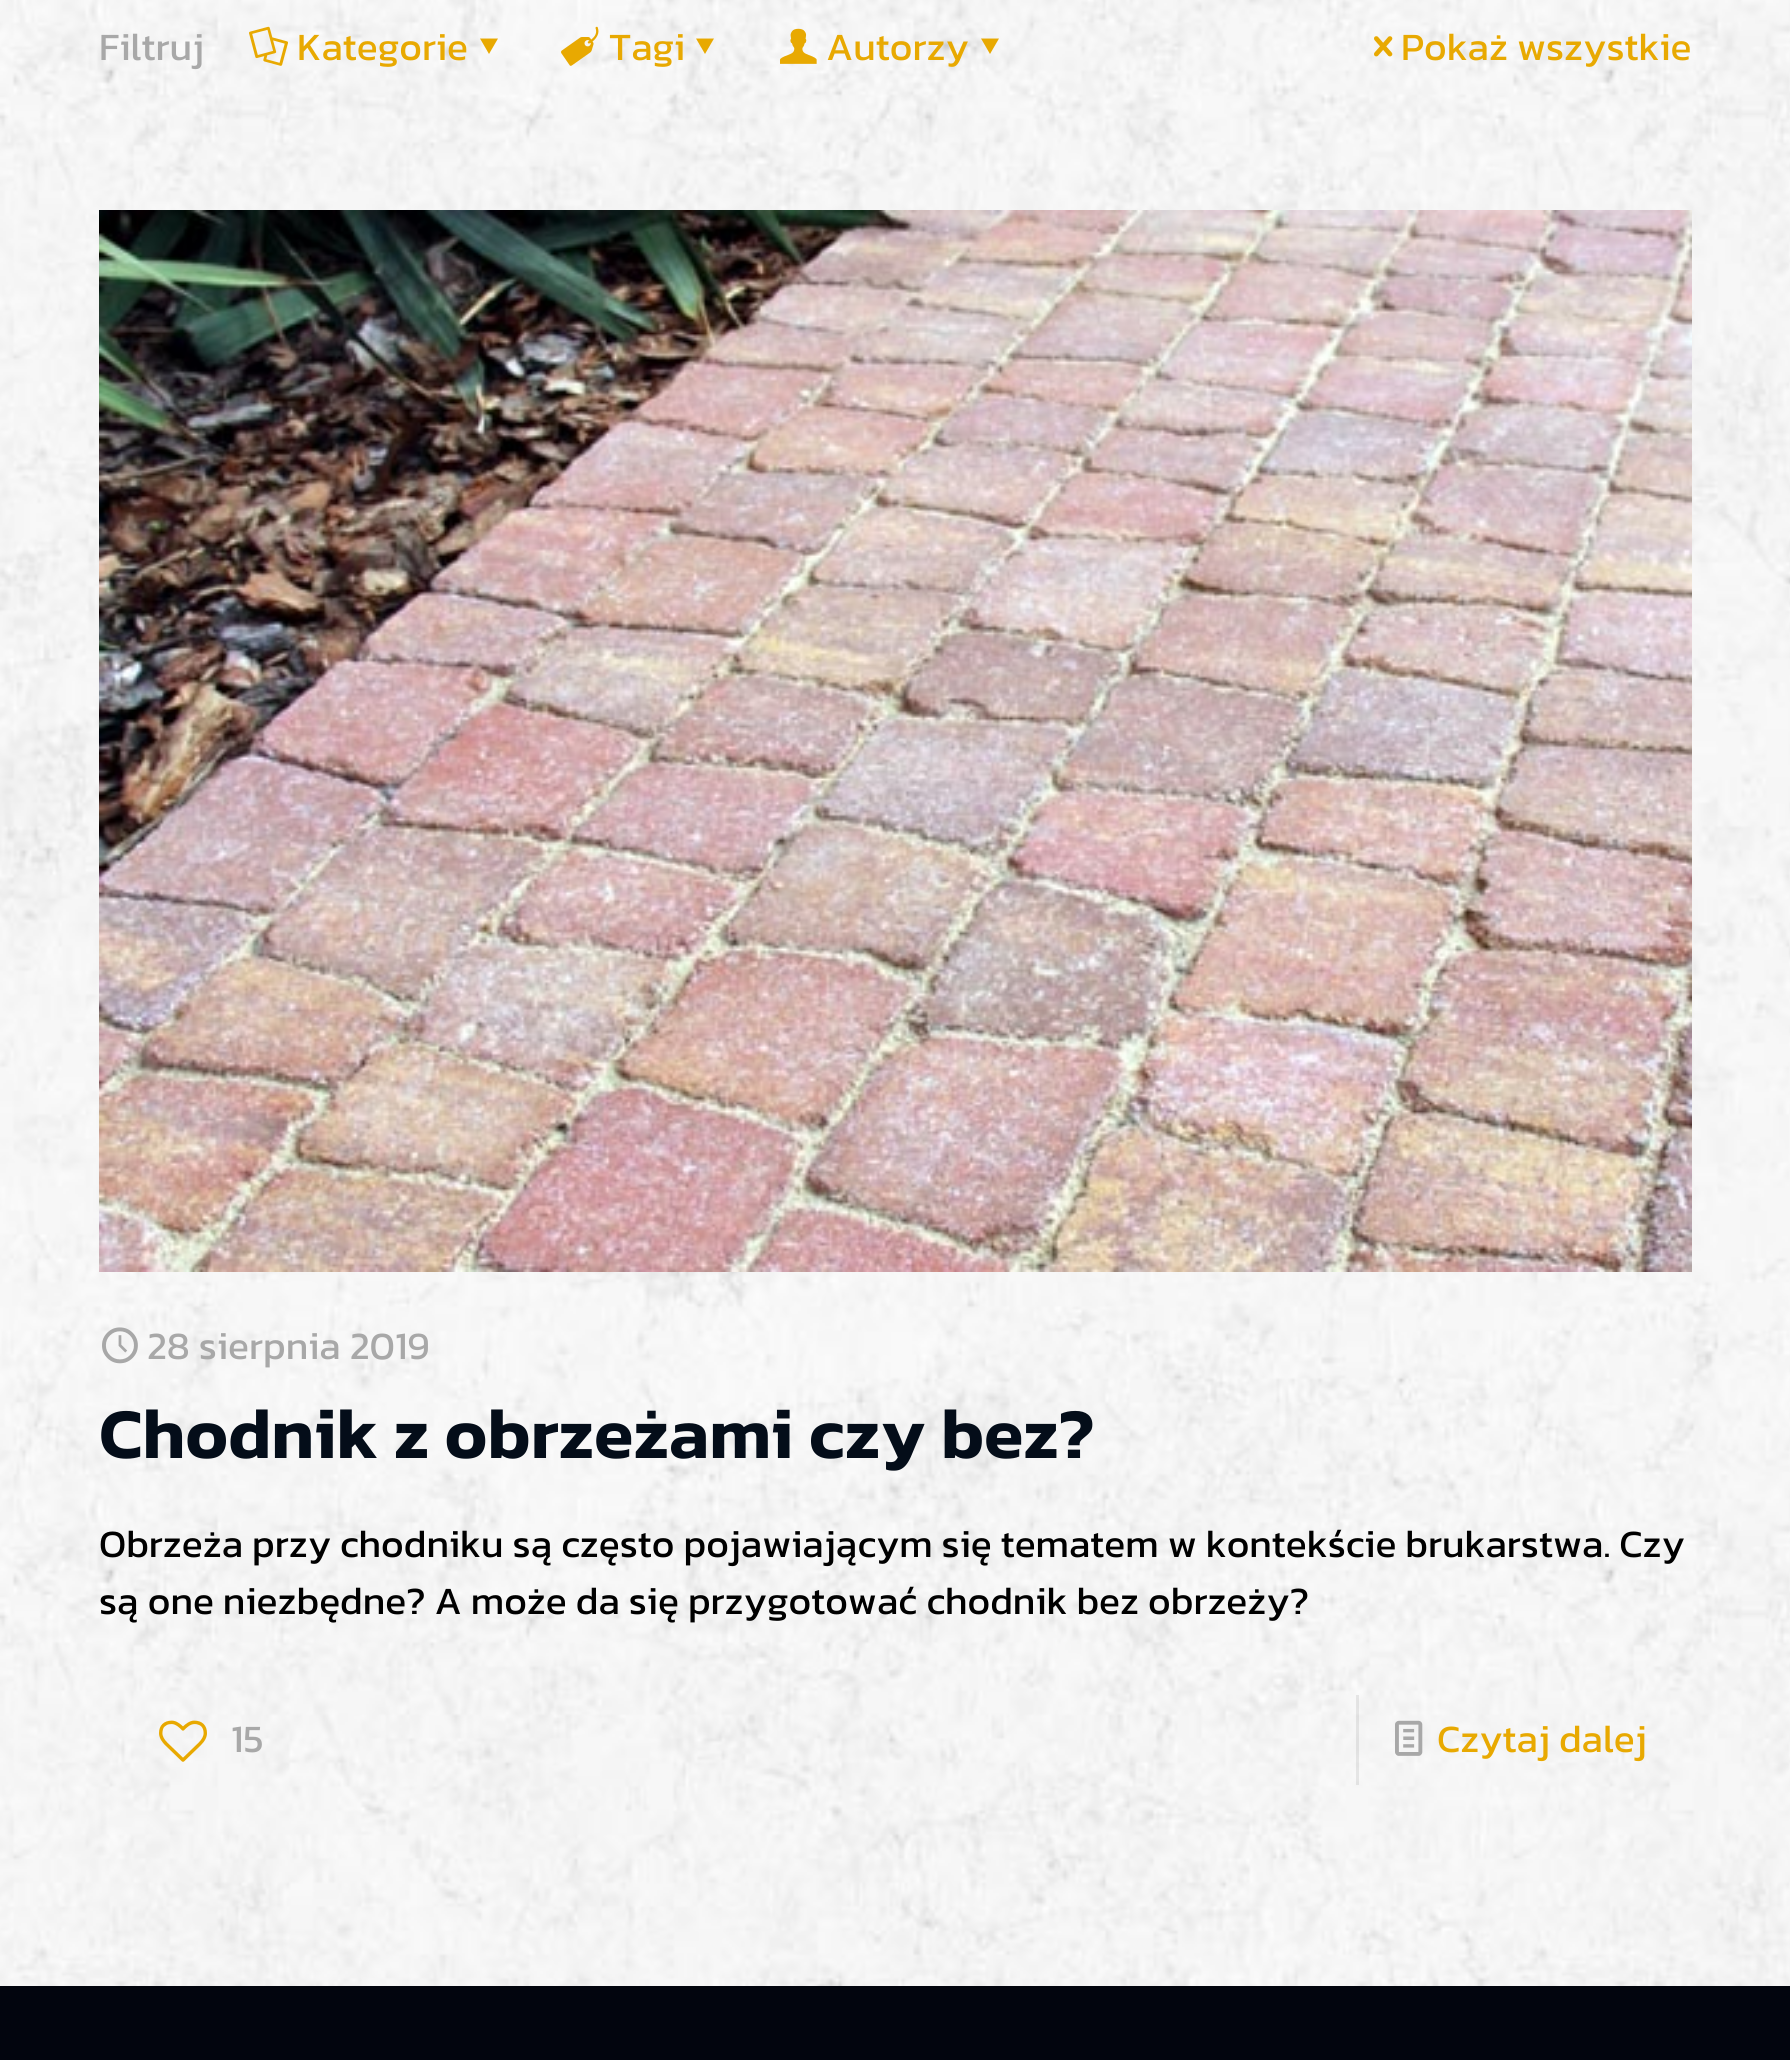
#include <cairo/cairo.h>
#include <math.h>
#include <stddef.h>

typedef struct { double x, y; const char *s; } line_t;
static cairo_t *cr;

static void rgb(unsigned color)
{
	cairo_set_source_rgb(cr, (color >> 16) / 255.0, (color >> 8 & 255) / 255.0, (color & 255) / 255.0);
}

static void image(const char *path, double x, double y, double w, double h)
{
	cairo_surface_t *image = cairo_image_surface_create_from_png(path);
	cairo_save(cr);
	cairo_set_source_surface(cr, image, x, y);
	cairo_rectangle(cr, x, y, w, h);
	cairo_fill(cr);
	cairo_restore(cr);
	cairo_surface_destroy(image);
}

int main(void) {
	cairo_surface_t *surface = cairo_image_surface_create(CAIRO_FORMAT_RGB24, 1790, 2060);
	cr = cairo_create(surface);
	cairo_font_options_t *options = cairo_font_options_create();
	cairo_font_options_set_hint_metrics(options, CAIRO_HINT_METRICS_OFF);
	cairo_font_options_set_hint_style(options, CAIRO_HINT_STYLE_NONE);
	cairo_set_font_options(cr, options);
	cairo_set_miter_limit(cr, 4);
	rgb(0xffffff);
	cairo_paint(cr);
	image("img/1.png", 0, 0, 1790, 1986);
	image("img/2.png", 249, 26, 39, 40);
	rgb(0xe8a901);
	cairo_new_path(cr);
	cairo_move_to(cr, 498, 38.5);
	cairo_line_to(cr, 489, 54);
	cairo_line_to(cr, 480, 38.5);
	cairo_close_path(cr);
	cairo_fill(cr);
	image("img/3.png", 561, 26, 38, 40);
	cairo_new_path(cr);
	cairo_move_to(cr, 714, 38.5);
	cairo_line_to(cr, 705, 54);
	cairo_line_to(cr, 696, 38.5);
	cairo_close_path(cr);
	cairo_fill(cr);
	image("img/4.png", 780, 28, 37, 36);
	cairo_new_path(cr);
	cairo_move_to(cr, 999, 38.5);
	cairo_line_to(cr, 990, 54);
	cairo_line_to(cr, 981, 38.5);
	cairo_close_path(cr);
	cairo_fill(cr);
	image("img/5.png", 1374, 36, 19, 21);
	image("img/6.png", 99, 210, 1593, 1062);
	image("img/7.png", 102, 1327, 36, 37);
	image("img/8.png", 159, 1720, 48, 42);
	cairo_set_source_rgba(cr, 0, 0, 0, 0.08);
	cairo_rectangle(cr, 1356, 1695, 3, 90);
	cairo_fill(cr);
	image("img/9.png", 1395, 1720, 28, 36);
	rgb(0x02050e);
	cairo_rectangle(cr, 0, 1986, 1790, 74);
	cairo_fill(cr);
	cairo_select_font_face(cr, "Kanit", CAIRO_FONT_SLANT_NORMAL, CAIRO_FONT_WEIGHT_NORMAL);
	cairo_set_font_size(cr, 39);
	rgb(0xa8a8a8);
	cairo_move_to(cr, 99, 60);
	cairo_show_text(cr, "Filtruj");
	rgb(0xe8a901);
	{
		static const line_t items[] = {
			{297, 60, "Kategorie"},
			{609, 60, "Tagi"},
			{826, 60, "Autorzy"},
			{1401, 60, "Pokaż wszystkie"},
		};
		for (size_t i = 0; i < sizeof items / sizeof *items; i++) {
			cairo_move_to(cr, items[i].x, items[i].y);
			cairo_show_text(cr, items[i].s);
		}
	}
	rgb(0xa8a8a8);
	cairo_move_to(cr, 147, 1359);
	cairo_show_text(cr, "28 sierpnia 2019");
	cairo_select_font_face(cr, "Kanit SemiBold", CAIRO_FONT_SLANT_NORMAL, CAIRO_FONT_WEIGHT_NORMAL);
	cairo_set_font_size(cr, 72);
	rgb(0x040d19);
	cairo_move_to(cr, 99, 1458);
	cairo_show_text(cr, "Chodnik z obrzeżami czy bez?");
	cairo_select_font_face(cr, "Kanit", CAIRO_FONT_SLANT_NORMAL, CAIRO_FONT_WEIGHT_NORMAL);
	cairo_set_font_size(cr, 39);
	rgb(0x000000);
	cairo_move_to(cr, 99, 1557);
	cairo_show_text(cr, "Obrzeża przy chodniku są często pojawiającym się tematem w kontekście brukarstwa. Czy");
	cairo_move_to(cr, 99, 1614);
	cairo_show_text(cr, "są one niezbędne? A może da się przygotować chodnik bez obrzeży?");
	rgb(0xa8a8a8);
	cairo_move_to(cr, 231, 1752);
	cairo_show_text(cr, "15");
	rgb(0xe8a901);
	cairo_move_to(cr, 1437, 1752);
	cairo_show_text(cr, "Czytaj dalej");
	cairo_surface_write_to_png(surface, "page.png");
	cairo_font_options_destroy(options);
	cairo_destroy(cr);
	cairo_surface_destroy(surface);
	return 0;
}
